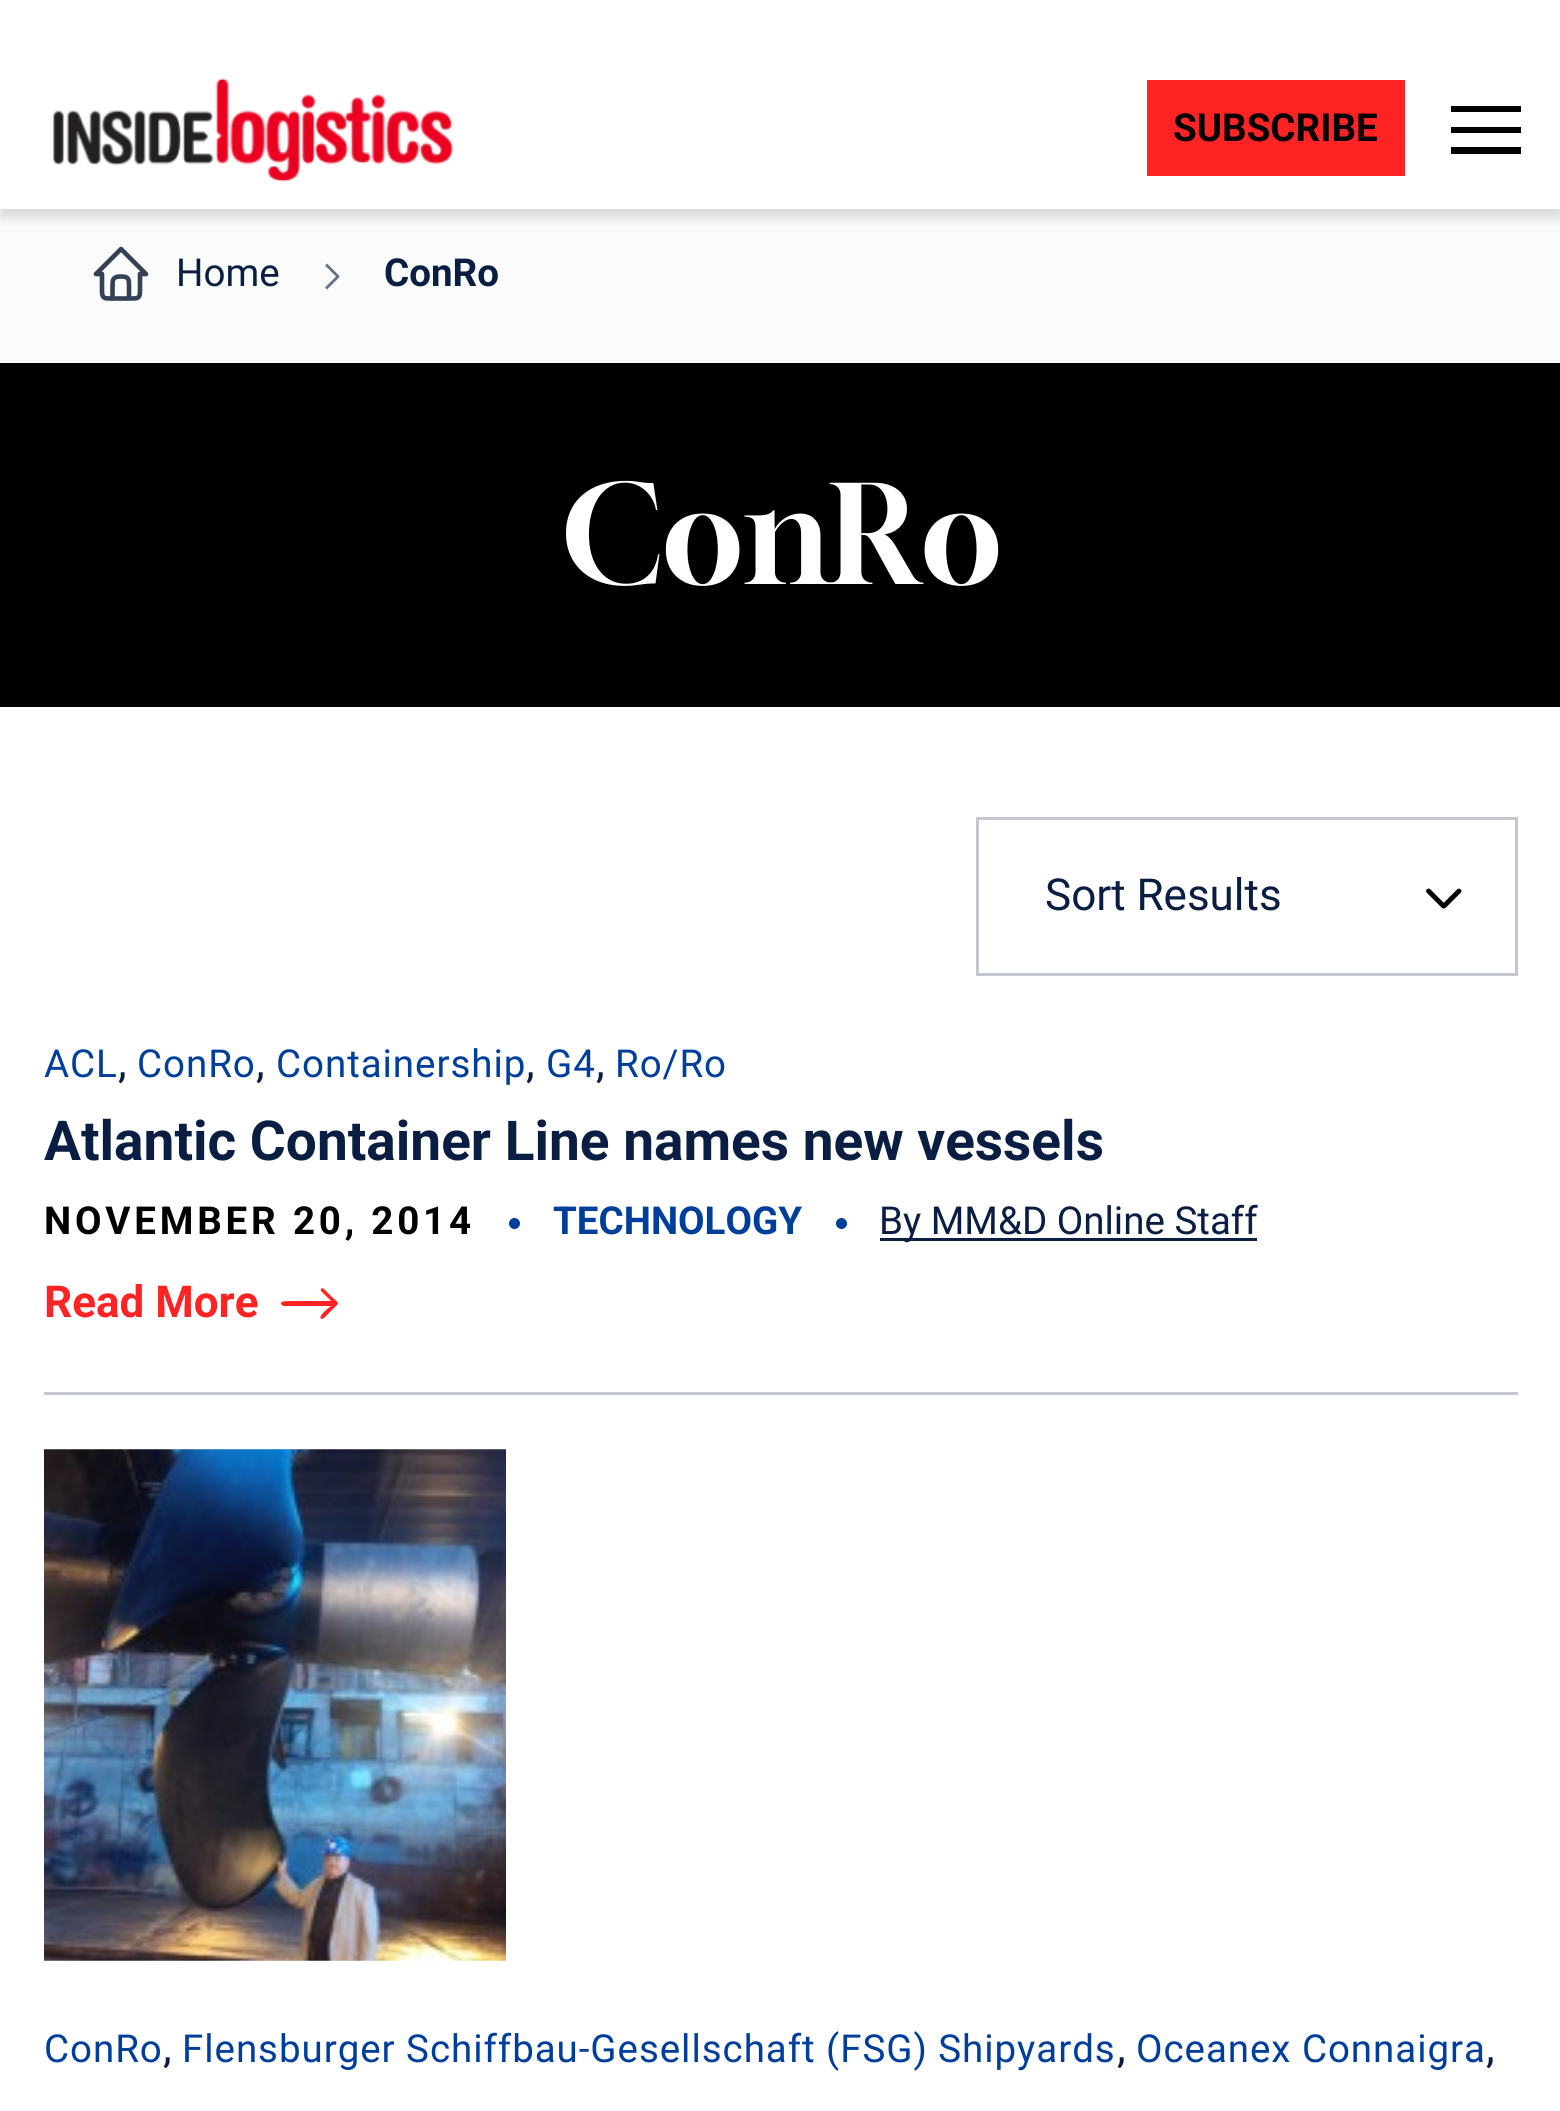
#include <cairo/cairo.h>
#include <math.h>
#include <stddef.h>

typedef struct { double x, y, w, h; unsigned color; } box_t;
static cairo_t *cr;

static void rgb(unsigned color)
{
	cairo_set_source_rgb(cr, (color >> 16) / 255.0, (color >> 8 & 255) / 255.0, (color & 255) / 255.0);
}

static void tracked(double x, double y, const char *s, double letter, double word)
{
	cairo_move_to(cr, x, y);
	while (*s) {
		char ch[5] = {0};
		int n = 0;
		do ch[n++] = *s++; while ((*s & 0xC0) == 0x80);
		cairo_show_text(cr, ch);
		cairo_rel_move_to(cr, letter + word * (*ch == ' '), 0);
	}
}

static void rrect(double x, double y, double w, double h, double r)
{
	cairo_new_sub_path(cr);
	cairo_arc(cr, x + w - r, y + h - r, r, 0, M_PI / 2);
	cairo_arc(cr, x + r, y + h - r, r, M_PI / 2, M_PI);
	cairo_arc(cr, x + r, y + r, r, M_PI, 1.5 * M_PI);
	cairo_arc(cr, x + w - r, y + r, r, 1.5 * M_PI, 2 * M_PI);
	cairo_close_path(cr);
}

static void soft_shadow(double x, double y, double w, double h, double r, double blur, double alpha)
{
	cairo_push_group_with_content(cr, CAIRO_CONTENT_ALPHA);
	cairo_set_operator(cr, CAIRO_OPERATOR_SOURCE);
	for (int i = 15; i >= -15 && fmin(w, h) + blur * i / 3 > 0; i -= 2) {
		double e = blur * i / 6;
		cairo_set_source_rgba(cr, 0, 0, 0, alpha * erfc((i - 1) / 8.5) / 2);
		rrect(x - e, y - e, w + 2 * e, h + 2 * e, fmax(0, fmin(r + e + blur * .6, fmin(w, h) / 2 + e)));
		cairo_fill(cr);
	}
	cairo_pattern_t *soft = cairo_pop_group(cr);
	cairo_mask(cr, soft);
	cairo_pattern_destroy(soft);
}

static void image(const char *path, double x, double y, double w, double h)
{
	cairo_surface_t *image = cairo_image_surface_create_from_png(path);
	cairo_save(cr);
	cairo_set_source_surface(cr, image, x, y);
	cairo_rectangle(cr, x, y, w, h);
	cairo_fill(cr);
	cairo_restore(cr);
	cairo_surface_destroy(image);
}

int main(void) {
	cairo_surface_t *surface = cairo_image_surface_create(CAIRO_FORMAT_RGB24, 1560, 2111);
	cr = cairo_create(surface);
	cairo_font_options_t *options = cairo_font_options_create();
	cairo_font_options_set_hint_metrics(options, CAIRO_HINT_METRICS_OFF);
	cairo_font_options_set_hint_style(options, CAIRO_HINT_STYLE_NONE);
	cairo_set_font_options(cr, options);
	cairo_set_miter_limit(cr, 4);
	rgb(0xffffff);
	cairo_paint(cr);
	rgb(0xfafbfb);
	cairo_rectangle(cr, 0, 209, 1560, 154);
	cairo_fill(cr);
	cairo_save(cr);
	cairo_rectangle(cr, 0, 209, 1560, 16);
	cairo_clip(cr);
	rgb(0x000000);
	soft_shadow(0, 58, 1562, 159, 0, 7, 0.15);
	cairo_restore(cr);
	image("img/1.png", 52, 78, 401, 104);
	{
		static const box_t items[] = {
			{1147, 80, 258, 96, 0xff2323},
			{1451, 106, 70, 6, 0x000000},
			{1451, 127, 70, 6, 0x000000},
			{1451, 147, 70, 7, 0x000000},
		};
		for (size_t i = 0; i < sizeof items / sizeof *items; i++) {
			rgb(items[i].color);
			cairo_rectangle(cr, items[i].x, items[i].y, items[i].w, items[i].h);
			cairo_fill(cr);
		}
	}
	cairo_new_path(cr);
	cairo_move_to(cr, 101.5, 274);
	cairo_line_to(cr, 96, 274);
	cairo_line_to(cr, 121, 249);
	cairo_line_to(cr, 146, 274);
	cairo_line_to(cr, 140, 274);
	cairo_move_to(cr, 102, 274);
	cairo_line_to(cr, 102, 290);
	cairo_curve_to(cr, 102, 298.5, 103.5, 298.5, 112, 298.5);
	cairo_line_to(cr, 130, 298.5);
	cairo_curve_to(cr, 138.5, 298.5, 140, 298.5, 140, 290);
	cairo_line_to(cr, 140, 274);
	cairo_move_to(cr, 112.5, 298.5);
	cairo_line_to(cr, 112.5, 287.5);
	cairo_curve_to(cr, 112.5, 279.5, 112.5, 276.5, 121, 276.5);
	cairo_curve_to(cr, 129.5, 276.5, 129, 279.5, 129, 287.5);
	cairo_line_to(cr, 129, 298.5);
	rgb(0x344054);
	cairo_set_line_width(cr, 4.6);
	cairo_set_line_cap(cr, CAIRO_LINE_CAP_ROUND);
	cairo_set_line_join(cr, CAIRO_LINE_JOIN_ROUND);
	cairo_stroke(cr);
	cairo_new_path(cr);
	cairo_move_to(cr, 327, 265.5);
	cairo_line_to(cr, 338, 276.5);
	cairo_line_to(cr, 327, 287.5);
	rgb(0x667085);
	cairo_set_line_width(cr, 2.8);
	cairo_set_line_cap(cr, CAIRO_LINE_CAP_SQUARE);
	cairo_stroke(cr);
	rgb(0x000000);
	cairo_rectangle(cr, 0, 363, 1560, 344);
	cairo_fill(cr);
	cairo_rectangle(cr, 977.5, 818.5, 539, 156);
	rgb(0xc2c7d0);
	cairo_set_line_width(cr, 3);
	cairo_set_line_cap(cr, CAIRO_LINE_CAP_BUTT);
	cairo_set_line_join(cr, CAIRO_LINE_JOIN_MITER);
	cairo_stroke(cr);
	image("img/2.png", 1426, 888, 36, 21);
	cairo_rectangle(cr, 44, 1392, 1474, 3);
	cairo_fill(cr);
	rgb(0x003e9c);
	cairo_arc(cr, 514.5, 1223.5, 5.5, 0, 2 * M_PI);
	cairo_fill(cr);
	cairo_arc(cr, 841.5, 1223.5, 5.5, 0, 2 * M_PI);
	cairo_fill(cr);
	rgb(0x091e42);
	cairo_rectangle(cr, 880, 1238, 377, 3);
	cairo_fill(cr);
	rgb(0xff2323);
	cairo_set_fill_rule(cr, CAIRO_FILL_RULE_EVEN_ODD);
	cairo_new_path(cr);
	cairo_move_to(cr, 324, 1289);
	cairo_line_to(cr, 333, 1298);
	cairo_curve_to(cr, 338, 1303, 340, 1302, 335, 1307);
	cairo_line_to(cr, 324, 1318);
	cairo_line_to(cr, 322, 1319);
	cairo_curve_to(cr, 317, 1318, 325, 1311, 326, 1310);
	cairo_line_to(cr, 331, 1306);
	cairo_line_to(cr, 283, 1306);
	cairo_line_to(cr, 281, 1304);
	cairo_curve_to(cr, 280, 1301, 286, 1301, 291, 1301);
	cairo_line_to(cr, 331, 1301);
	cairo_line_to(cr, 321, 1291);
	cairo_curve_to(cr, 320, 1289, 322, 1287, 324, 1289);
	cairo_close_path(cr);
	cairo_fill(cr);
	image("img/3.png", 44, 1449, 462, 512);
	cairo_select_font_face(cr, "Roboto", CAIRO_FONT_SLANT_NORMAL, CAIRO_FONT_WEIGHT_BOLD);
	cairo_set_font_size(cr, 38.5);
	rgb(0x000000);
	cairo_move_to(cr, 1173, 141);
	cairo_show_text(cr, "SUBSCRIBE");
	cairo_select_font_face(cr, "Roboto", CAIRO_FONT_SLANT_NORMAL, CAIRO_FONT_WEIGHT_NORMAL);
	rgb(0x091e42);
	cairo_move_to(cr, 176, 286);
	cairo_show_text(cr, "Home");
	cairo_select_font_face(cr, "Roboto", CAIRO_FONT_SLANT_NORMAL, CAIRO_FONT_WEIGHT_BOLD);
	cairo_move_to(cr, 384, 286);
	cairo_show_text(cr, "ConRo");
	cairo_select_font_face(cr, "Gloock", CAIRO_FONT_SLANT_NORMAL, CAIRO_FONT_WEIGHT_NORMAL);
	cairo_set_font_size(cr, 135);
	rgb(0xffffff);
	cairo_move_to(cr, 561, 584);
	cairo_show_text(cr, "ConRo");
	cairo_select_font_face(cr, "Roboto", CAIRO_FONT_SLANT_NORMAL, CAIRO_FONT_WEIGHT_NORMAL);
	cairo_set_font_size(cr, 44);
	rgb(0x091e42);
	cairo_move_to(cr, 1045, 910);
	cairo_show_text(cr, "Sort Results");
	cairo_set_font_size(cr, 38.5);
	rgb(0x003e9c);
	tracked(44, 1077, "ACL", 0.95, 0);
	cairo_set_font_size(cr, 44);
	rgb(0x091e42);
	cairo_move_to(cr, 118, 1077);
	cairo_show_text(cr, ",");
	cairo_set_font_size(cr, 38.5);
	rgb(0x003e9c);
	tracked(137, 1077, "ConRo", 0.95, 0);
	cairo_set_font_size(cr, 44);
	rgb(0x091e42);
	cairo_move_to(cr, 256, 1077);
	cairo_show_text(cr, ",");
	cairo_set_font_size(cr, 38.5);
	rgb(0x003e9c);
	tracked(276, 1077, "Containership", 0.95, 0);
	cairo_set_font_size(cr, 44);
	rgb(0x091e42);
	cairo_move_to(cr, 526, 1077);
	cairo_show_text(cr, ",");
	cairo_set_font_size(cr, 38.5);
	rgb(0x003e9c);
	tracked(546, 1077, "G4", 0.95, 0);
	cairo_set_font_size(cr, 44);
	rgb(0x091e42);
	cairo_move_to(cr, 596, 1077);
	cairo_show_text(cr, ",");
	cairo_set_font_size(cr, 38.5);
	rgb(0x003e9c);
	tracked(615, 1077, "Ro/Ro", 0.95, 0);
	cairo_select_font_face(cr, "Roboto", CAIRO_FONT_SLANT_NORMAL, CAIRO_FONT_WEIGHT_BOLD);
	cairo_set_font_size(cr, 55);
	rgb(0x091e42);
	cairo_move_to(cr, 44, 1160);
	cairo_show_text(cr, "Atlantic Container Line names new vessels");
	cairo_set_font_size(cr, 38.5);
	rgb(0x000000);
	tracked(44, 1234, "NOVEMBER 20, 2014", 3.8, 0);
	rgb(0x003e9c);
	cairo_move_to(cr, 553, 1234);
	cairo_show_text(cr, "TECHNOLOGY");
	cairo_select_font_face(cr, "Roboto", CAIRO_FONT_SLANT_NORMAL, CAIRO_FONT_WEIGHT_NORMAL);
	rgb(0x091e42);
	cairo_move_to(cr, 879, 1234);
	cairo_show_text(cr, "By MM&D Online Staff");
	cairo_select_font_face(cr, "Roboto", CAIRO_FONT_SLANT_NORMAL, CAIRO_FONT_WEIGHT_BOLD);
	cairo_set_font_size(cr, 44);
	rgb(0xff2323);
	cairo_move_to(cr, 44, 1317);
	cairo_show_text(cr, "Read More");
	cairo_select_font_face(cr, "Roboto", CAIRO_FONT_SLANT_NORMAL, CAIRO_FONT_WEIGHT_NORMAL);
	cairo_set_font_size(cr, 38.5);
	rgb(0x003e9c);
	tracked(44, 2062, "ConRo", 0.95, 0);
	cairo_set_font_size(cr, 44);
	rgb(0x091e42);
	cairo_move_to(cr, 163, 2062);
	cairo_show_text(cr, ",");
	cairo_set_font_size(cr, 38.5);
	rgb(0x003e9c);
	tracked(182, 2062, "Flensburger Schiffbau-Gesellschaft (FSG) Shipyards", 0.95, 0);
	cairo_set_font_size(cr, 44);
	rgb(0x091e42);
	cairo_move_to(cr, 1117, 2062);
	cairo_show_text(cr, ",");
	cairo_set_font_size(cr, 38.5);
	rgb(0x003e9c);
	tracked(1136, 2062, "Oceanex Connaigra", 0.95, 0);
	cairo_set_font_size(cr, 44);
	rgb(0x091e42);
	cairo_move_to(cr, 1486, 2062);
	cairo_show_text(cr, ",");
	cairo_surface_write_to_png(surface, "page.png");
	cairo_font_options_destroy(options);
	cairo_destroy(cr);
	cairo_surface_destroy(surface);
	return 0;
}
